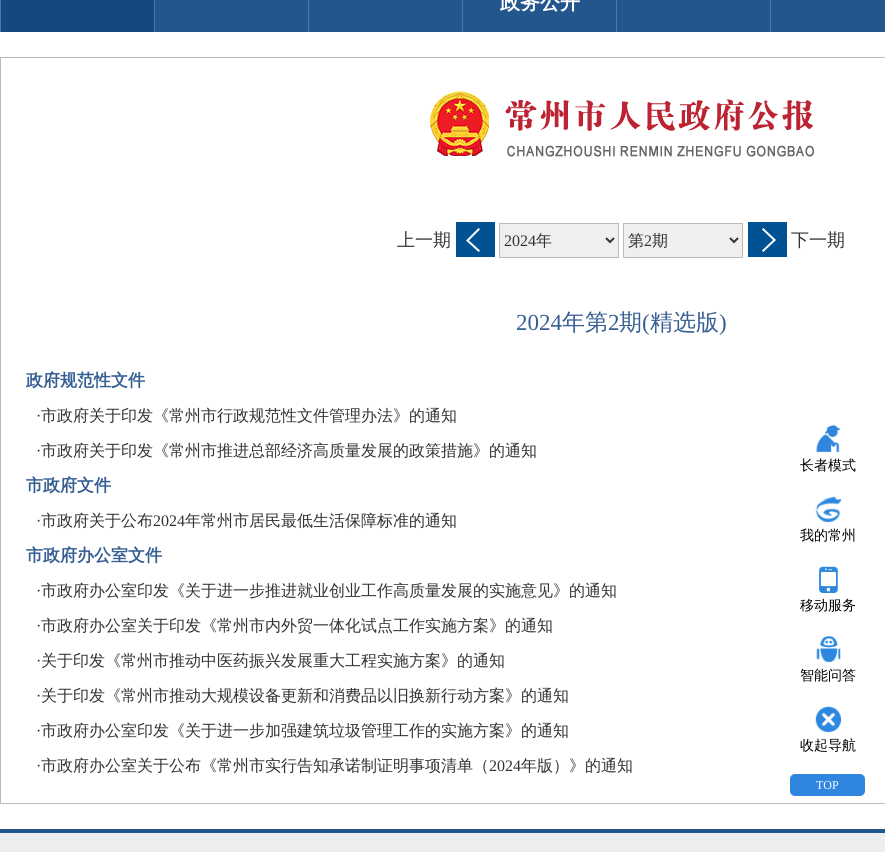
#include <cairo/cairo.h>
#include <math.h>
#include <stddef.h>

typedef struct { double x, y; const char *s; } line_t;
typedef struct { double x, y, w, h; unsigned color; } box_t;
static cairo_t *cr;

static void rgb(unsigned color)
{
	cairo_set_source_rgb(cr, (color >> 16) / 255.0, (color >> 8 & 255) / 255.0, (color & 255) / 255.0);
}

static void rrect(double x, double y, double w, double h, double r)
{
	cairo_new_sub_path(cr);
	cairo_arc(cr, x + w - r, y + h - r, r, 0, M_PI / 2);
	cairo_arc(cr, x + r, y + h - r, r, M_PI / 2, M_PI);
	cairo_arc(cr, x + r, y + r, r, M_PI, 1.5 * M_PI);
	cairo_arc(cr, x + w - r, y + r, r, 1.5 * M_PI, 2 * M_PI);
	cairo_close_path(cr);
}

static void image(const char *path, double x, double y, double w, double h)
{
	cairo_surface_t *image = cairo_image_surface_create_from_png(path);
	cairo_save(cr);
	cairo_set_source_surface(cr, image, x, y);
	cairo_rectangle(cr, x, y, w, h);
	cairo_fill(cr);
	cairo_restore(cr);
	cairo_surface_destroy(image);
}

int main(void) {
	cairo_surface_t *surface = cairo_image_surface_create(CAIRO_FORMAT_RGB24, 885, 852);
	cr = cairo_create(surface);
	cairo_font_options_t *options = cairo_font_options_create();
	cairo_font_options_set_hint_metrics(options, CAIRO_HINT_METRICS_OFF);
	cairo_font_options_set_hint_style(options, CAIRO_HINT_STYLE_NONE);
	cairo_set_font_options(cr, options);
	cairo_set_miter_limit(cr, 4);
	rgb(0x22568d);
	cairo_paint(cr);
	{
		static const box_t items[] = {
			{0, 0, 1, 32, 0x4e78a4},
			{1, 0, 153, 32, 0x15487e},
			{154, 0, 1, 32, 0x4e78a4},
			{308, 0, 1, 32, 0x4e78a4},
			{462, 0, 1, 32, 0x4e78a4},
			{616, 0, 1, 32, 0x4e78a4},
			{770, 0, 1, 32, 0x4e78a4},
			{0, 32, 885, 797, 0xffffff},
		};
		for (size_t i = 0; i < sizeof items / sizeof *items; i++) {
			rgb(items[i].color);
			cairo_rectangle(cr, items[i].x, items[i].y, items[i].w, items[i].h);
			cairo_fill(cr);
		}
	}
	cairo_rectangle(cr, 0.5, 57.5, 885, 746);
	rgb(0xbbbbbb);
	cairo_set_line_width(cr, 1);
	cairo_stroke(cr);
	image("img/1.png", 430, 91, 384, 66);
	image("img/2.png", 456, 222, 39, 35);
	rgb(0xefefef);
	cairo_rectangle(cr, 499.5, 223.5, 119, 34);
	cairo_fill_preserve(cr);
	rgb(0xbbbbbb);
	cairo_stroke(cr);
	cairo_new_path(cr);
	cairo_move_to(cr, 606, 238);
	cairo_line_to(cr, 610, 242);
	cairo_line_to(cr, 614, 238);
	rgb(0x333333);
	cairo_set_line_width(cr, 2);
	cairo_stroke(cr);
	rgb(0xefefef);
	cairo_rectangle(cr, 623.5, 223.5, 119, 34);
	cairo_fill_preserve(cr);
	rgb(0xbbbbbb);
	cairo_set_line_width(cr, 1);
	cairo_stroke(cr);
	cairo_new_path(cr);
	cairo_move_to(cr, 730, 238);
	cairo_line_to(cr, 734, 242);
	cairo_line_to(cr, 738, 238);
	rgb(0x333333);
	cairo_set_line_width(cr, 2);
	cairo_stroke(cr);
	image("img/3.png", 748, 222, 39, 35);
	image("img/4.png", 816, 425, 25, 28);
	image("img/5.png", 815, 496, 27, 27);
	image("img/6.png", 819, 566, 19, 27);
	image("img/7.png", 816, 636, 25, 27);
	image("img/8.png", 815, 706, 27, 27);
	rgb(0x3086de);
	rrect(790, 774, 75, 22, 5);
	cairo_fill(cr);
	rgb(0xebedee);
	cairo_rectangle(cr, 0, 833, 885, 19);
	cairo_fill(cr);
	cairo_select_font_face(cr, "WenQuanYi Zen Hei", CAIRO_FONT_SLANT_NORMAL, CAIRO_FONT_WEIGHT_BOLD);
	cairo_set_font_size(cr, 20);
	rgb(0xffffff);
	cairo_move_to(cr, 500, 9);
	cairo_show_text(cr, "政务公开");
	cairo_select_font_face(cr, "WenQuanYi Zen Hei Medium", CAIRO_FONT_SLANT_NORMAL, CAIRO_FONT_WEIGHT_NORMAL);
	cairo_set_font_size(cr, 18);
	rgb(0x333333);
	cairo_move_to(cr, 397, 246);
	cairo_show_text(cr, "上一期");
	cairo_select_font_face(cr, "Liberation Serif", CAIRO_FONT_SLANT_NORMAL, CAIRO_FONT_WEIGHT_NORMAL);
	cairo_set_font_size(cr, 16);
	cairo_move_to(cr, 504, 246);
	cairo_show_text(cr, "2024");
	cairo_select_font_face(cr, "WenQuanYi Zen Hei Medium", CAIRO_FONT_SLANT_NORMAL, CAIRO_FONT_WEIGHT_NORMAL);
	cairo_move_to(cr, 536, 246);
	cairo_show_text(cr, "年");
	cairo_move_to(cr, 628, 246);
	cairo_show_text(cr, "第");
	cairo_select_font_face(cr, "Liberation Serif", CAIRO_FONT_SLANT_NORMAL, CAIRO_FONT_WEIGHT_NORMAL);
	cairo_move_to(cr, 644, 246);
	cairo_show_text(cr, "2");
	cairo_select_font_face(cr, "WenQuanYi Zen Hei Medium", CAIRO_FONT_SLANT_NORMAL, CAIRO_FONT_WEIGHT_NORMAL);
	cairo_move_to(cr, 652, 246);
	cairo_show_text(cr, "期");
	cairo_set_font_size(cr, 18);
	cairo_move_to(cr, 791, 246);
	cairo_show_text(cr, "下一期");
	cairo_select_font_face(cr, "Liberation Serif", CAIRO_FONT_SLANT_NORMAL, CAIRO_FONT_WEIGHT_NORMAL);
	cairo_set_font_size(cr, 23);
	rgb(0x355e92);
	cairo_move_to(cr, 516, 330);
	cairo_show_text(cr, "2024");
	cairo_select_font_face(cr, "WenQuanYi Zen Hei Medium", CAIRO_FONT_SLANT_NORMAL, CAIRO_FONT_WEIGHT_NORMAL);
	cairo_move_to(cr, 562, 330);
	cairo_show_text(cr, "年第");
	cairo_select_font_face(cr, "Liberation Serif", CAIRO_FONT_SLANT_NORMAL, CAIRO_FONT_WEIGHT_NORMAL);
	cairo_move_to(cr, 608, 330);
	cairo_show_text(cr, "2");
	cairo_select_font_face(cr, "WenQuanYi Zen Hei Medium", CAIRO_FONT_SLANT_NORMAL, CAIRO_FONT_WEIGHT_NORMAL);
	cairo_move_to(cr, 619, 330);
	cairo_show_text(cr, "期");
	cairo_select_font_face(cr, "Liberation Serif", CAIRO_FONT_SLANT_NORMAL, CAIRO_FONT_WEIGHT_NORMAL);
	cairo_move_to(cr, 642, 330);
	cairo_show_text(cr, "(");
	cairo_select_font_face(cr, "WenQuanYi Zen Hei Medium", CAIRO_FONT_SLANT_NORMAL, CAIRO_FONT_WEIGHT_NORMAL);
	cairo_move_to(cr, 650, 330);
	cairo_show_text(cr, "精选版");
	cairo_select_font_face(cr, "Liberation Serif", CAIRO_FONT_SLANT_NORMAL, CAIRO_FONT_WEIGHT_NORMAL);
	cairo_move_to(cr, 719, 330);
	cairo_show_text(cr, ")");
	cairo_select_font_face(cr, "WenQuanYi Zen Hei", CAIRO_FONT_SLANT_NORMAL, CAIRO_FONT_WEIGHT_BOLD);
	cairo_set_font_size(cr, 17);
	cairo_move_to(cr, 26, 386);
	cairo_show_text(cr, "政府规范性文件");
	cairo_select_font_face(cr, "Liberation Serif", CAIRO_FONT_SLANT_NORMAL, CAIRO_FONT_WEIGHT_NORMAL);
	cairo_set_font_size(cr, 16);
	rgb(0x333333);
	cairo_move_to(cr, 36, 421);
	cairo_show_text(cr, "·");
	cairo_select_font_face(cr, "WenQuanYi Zen Hei Medium", CAIRO_FONT_SLANT_NORMAL, CAIRO_FONT_WEIGHT_NORMAL);
	cairo_move_to(cr, 41, 421);
	cairo_show_text(cr, "市政府关于印发《常州市行政规范性文件管理办法》的通知");
	cairo_select_font_face(cr, "Liberation Serif", CAIRO_FONT_SLANT_NORMAL, CAIRO_FONT_WEIGHT_NORMAL);
	cairo_move_to(cr, 36, 456);
	cairo_show_text(cr, "·");
	cairo_select_font_face(cr, "WenQuanYi Zen Hei Medium", CAIRO_FONT_SLANT_NORMAL, CAIRO_FONT_WEIGHT_NORMAL);
	cairo_move_to(cr, 41, 456);
	cairo_show_text(cr, "市政府关于印发《常州市推进总部经济高质量发展的政策措施》的通知");
	cairo_select_font_face(cr, "WenQuanYi Zen Hei", CAIRO_FONT_SLANT_NORMAL, CAIRO_FONT_WEIGHT_BOLD);
	cairo_set_font_size(cr, 17);
	rgb(0x355e92);
	cairo_move_to(cr, 26, 491);
	cairo_show_text(cr, "市政府文件");
	cairo_select_font_face(cr, "Liberation Serif", CAIRO_FONT_SLANT_NORMAL, CAIRO_FONT_WEIGHT_NORMAL);
	cairo_set_font_size(cr, 16);
	rgb(0x333333);
	cairo_move_to(cr, 36, 526);
	cairo_show_text(cr, "·");
	cairo_select_font_face(cr, "WenQuanYi Zen Hei Medium", CAIRO_FONT_SLANT_NORMAL, CAIRO_FONT_WEIGHT_NORMAL);
	cairo_move_to(cr, 41, 526);
	cairo_show_text(cr, "市政府关于公布");
	cairo_select_font_face(cr, "Liberation Serif", CAIRO_FONT_SLANT_NORMAL, CAIRO_FONT_WEIGHT_NORMAL);
	cairo_move_to(cr, 153, 526);
	cairo_show_text(cr, "2024");
	cairo_select_font_face(cr, "WenQuanYi Zen Hei Medium", CAIRO_FONT_SLANT_NORMAL, CAIRO_FONT_WEIGHT_NORMAL);
	cairo_move_to(cr, 185, 526);
	cairo_show_text(cr, "年常州市居民最低生活保障标准的通知");
	cairo_select_font_face(cr, "WenQuanYi Zen Hei", CAIRO_FONT_SLANT_NORMAL, CAIRO_FONT_WEIGHT_BOLD);
	cairo_set_font_size(cr, 17);
	rgb(0x355e92);
	cairo_move_to(cr, 26, 561);
	cairo_show_text(cr, "市政府办公室文件");
	cairo_select_font_face(cr, "Liberation Serif", CAIRO_FONT_SLANT_NORMAL, CAIRO_FONT_WEIGHT_NORMAL);
	cairo_set_font_size(cr, 16);
	rgb(0x333333);
	cairo_move_to(cr, 36, 596);
	cairo_show_text(cr, "·");
	cairo_select_font_face(cr, "WenQuanYi Zen Hei Medium", CAIRO_FONT_SLANT_NORMAL, CAIRO_FONT_WEIGHT_NORMAL);
	cairo_move_to(cr, 41, 596);
	cairo_show_text(cr, "市政府办公室印发《关于进一步推进就业创业工作高质量发展的实施意见》的通知");
	cairo_select_font_face(cr, "Liberation Serif", CAIRO_FONT_SLANT_NORMAL, CAIRO_FONT_WEIGHT_NORMAL);
	cairo_move_to(cr, 36, 631);
	cairo_show_text(cr, "·");
	cairo_select_font_face(cr, "WenQuanYi Zen Hei Medium", CAIRO_FONT_SLANT_NORMAL, CAIRO_FONT_WEIGHT_NORMAL);
	cairo_move_to(cr, 41, 631);
	cairo_show_text(cr, "市政府办公室关于印发《常州市内外贸一体化试点工作实施方案》的通知");
	cairo_select_font_face(cr, "Liberation Serif", CAIRO_FONT_SLANT_NORMAL, CAIRO_FONT_WEIGHT_NORMAL);
	cairo_move_to(cr, 36, 666);
	cairo_show_text(cr, "·");
	cairo_select_font_face(cr, "WenQuanYi Zen Hei Medium", CAIRO_FONT_SLANT_NORMAL, CAIRO_FONT_WEIGHT_NORMAL);
	cairo_move_to(cr, 41, 666);
	cairo_show_text(cr, "关于印发《常州市推动中医药振兴发展重大工程实施方案》的通知");
	cairo_select_font_face(cr, "Liberation Serif", CAIRO_FONT_SLANT_NORMAL, CAIRO_FONT_WEIGHT_NORMAL);
	cairo_move_to(cr, 36, 701);
	cairo_show_text(cr, "·");
	cairo_select_font_face(cr, "WenQuanYi Zen Hei Medium", CAIRO_FONT_SLANT_NORMAL, CAIRO_FONT_WEIGHT_NORMAL);
	cairo_move_to(cr, 41, 701);
	cairo_show_text(cr, "关于印发《常州市推动大规模设备更新和消费品以旧换新行动方案》的通知");
	cairo_select_font_face(cr, "Liberation Serif", CAIRO_FONT_SLANT_NORMAL, CAIRO_FONT_WEIGHT_NORMAL);
	cairo_move_to(cr, 36, 736);
	cairo_show_text(cr, "·");
	cairo_select_font_face(cr, "WenQuanYi Zen Hei Medium", CAIRO_FONT_SLANT_NORMAL, CAIRO_FONT_WEIGHT_NORMAL);
	cairo_move_to(cr, 41, 736);
	cairo_show_text(cr, "市政府办公室印发《关于进一步加强建筑垃圾管理工作的实施方案》的通知");
	cairo_select_font_face(cr, "Liberation Serif", CAIRO_FONT_SLANT_NORMAL, CAIRO_FONT_WEIGHT_NORMAL);
	cairo_move_to(cr, 36, 771);
	cairo_show_text(cr, "·");
	cairo_select_font_face(cr, "WenQuanYi Zen Hei Medium", CAIRO_FONT_SLANT_NORMAL, CAIRO_FONT_WEIGHT_NORMAL);
	cairo_move_to(cr, 41, 771);
	cairo_show_text(cr, "市政府办公室关于公布《常州市实行告知承诺制证明事项清单（");
	cairo_select_font_face(cr, "Liberation Serif", CAIRO_FONT_SLANT_NORMAL, CAIRO_FONT_WEIGHT_NORMAL);
	cairo_move_to(cr, 489, 771);
	cairo_show_text(cr, "2024");
	cairo_select_font_face(cr, "WenQuanYi Zen Hei Medium", CAIRO_FONT_SLANT_NORMAL, CAIRO_FONT_WEIGHT_NORMAL);
	cairo_move_to(cr, 521, 771);
	cairo_show_text(cr, "年版）》的通知");
	cairo_set_font_size(cr, 14);
	rgb(0x000000);
	{
		static const line_t items[] = {
			{800, 470, "长者模式"},
			{800, 540, "我的常州"},
			{800, 610, "移动服务"},
			{800, 680, "智能问答"},
			{800, 750, "收起导航"},
		};
		for (size_t i = 0; i < sizeof items / sizeof *items; i++) {
			cairo_move_to(cr, items[i].x, items[i].y);
			cairo_show_text(cr, items[i].s);
		}
	}
	cairo_select_font_face(cr, "Liberation Serif", CAIRO_FONT_SLANT_NORMAL, CAIRO_FONT_WEIGHT_NORMAL);
	cairo_set_font_size(cr, 12);
	rgb(0xffffff);
	cairo_move_to(cr, 816, 789);
	cairo_show_text(cr, "TOP");
	cairo_surface_write_to_png(surface, "page.png");
	cairo_font_options_destroy(options);
	cairo_destroy(cr);
	cairo_surface_destroy(surface);
	return 0;
}
